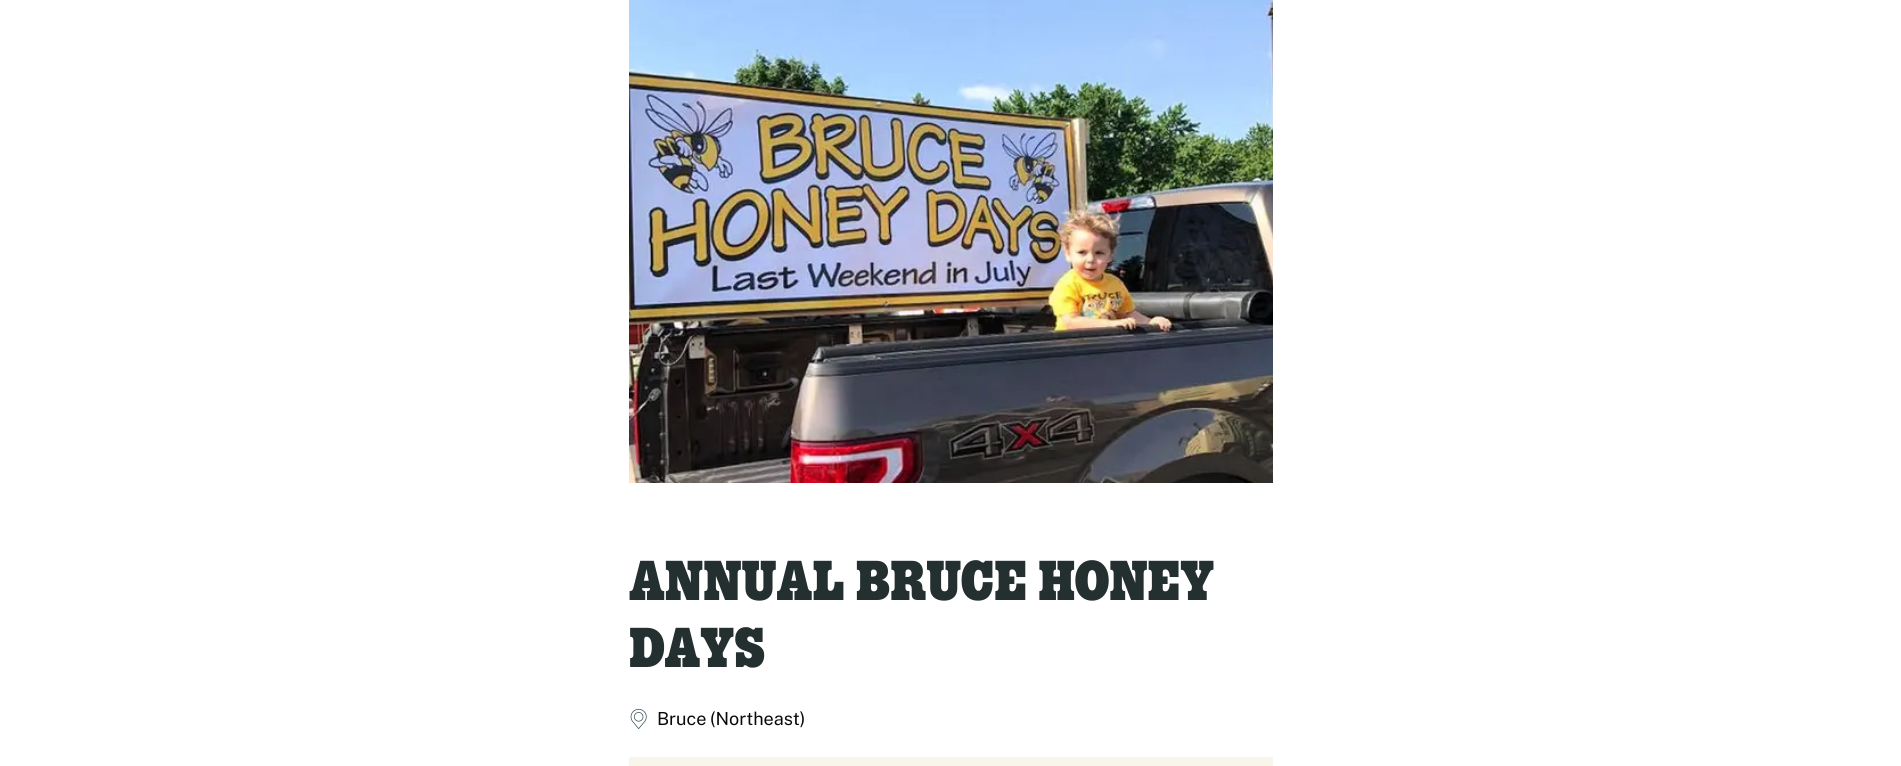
#include <cairo/cairo.h>
#include <math.h>
#include <stddef.h>

static cairo_t *cr;

static void rgb(unsigned color)
{
	cairo_set_source_rgb(cr, (color >> 16) / 255.0, (color >> 8 & 255) / 255.0, (color & 255) / 255.0);
}

static void image(const char *path, double x, double y, double w, double h)
{
	cairo_surface_t *image = cairo_image_surface_create_from_png(path);
	cairo_save(cr);
	cairo_set_source_surface(cr, image, x, y);
	cairo_rectangle(cr, x, y, w, h);
	cairo_fill(cr);
	cairo_restore(cr);
	cairo_surface_destroy(image);
}

int main(void) {
	cairo_surface_t *surface = cairo_image_surface_create(CAIRO_FORMAT_RGB24, 1901, 766);
	cr = cairo_create(surface);
	cairo_font_options_t *options = cairo_font_options_create();
	cairo_font_options_set_hint_metrics(options, CAIRO_HINT_METRICS_OFF);
	cairo_font_options_set_hint_style(options, CAIRO_HINT_STYLE_NONE);
	cairo_set_font_options(cr, options);
	cairo_set_miter_limit(cr, 4);
	rgb(0xffffff);
	cairo_paint(cr);
	image("img/1.png", 629, 0, 644, 483);
	image("img/2.png", 630, 709, 17, 20);
	rgb(0xf9f5ea);
	cairo_rectangle(cr, 629, 757, 644, 9);
	cairo_fill(cr);
	cairo_select_font_face(cr, "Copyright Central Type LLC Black", CAIRO_FONT_SLANT_NORMAL, CAIRO_FONT_WEIGHT_NORMAL);
	cairo_set_font_size(cr, 56);
	rgb(0x242f2f);
	cairo_move_to(cr, 629, 600);
	cairo_show_text(cr, "ANNUAL BRUCE HONEY");
	cairo_move_to(cr, 629, 667);
	cairo_show_text(cr, "DAYS");
	cairo_select_font_face(cr, "Public Sans", CAIRO_FONT_SLANT_NORMAL, CAIRO_FONT_WEIGHT_NORMAL);
	cairo_set_font_size(cr, 18);
	rgb(0x09090b);
	cairo_move_to(cr, 657, 725);
	cairo_show_text(cr, "Bruce");
	cairo_move_to(cr, 710, 725);
	cairo_show_text(cr, "(Northeast)");
	cairo_surface_write_to_png(surface, "page.png");
	cairo_font_options_destroy(options);
	cairo_destroy(cr);
	cairo_surface_destroy(surface);
	return 0;
}
